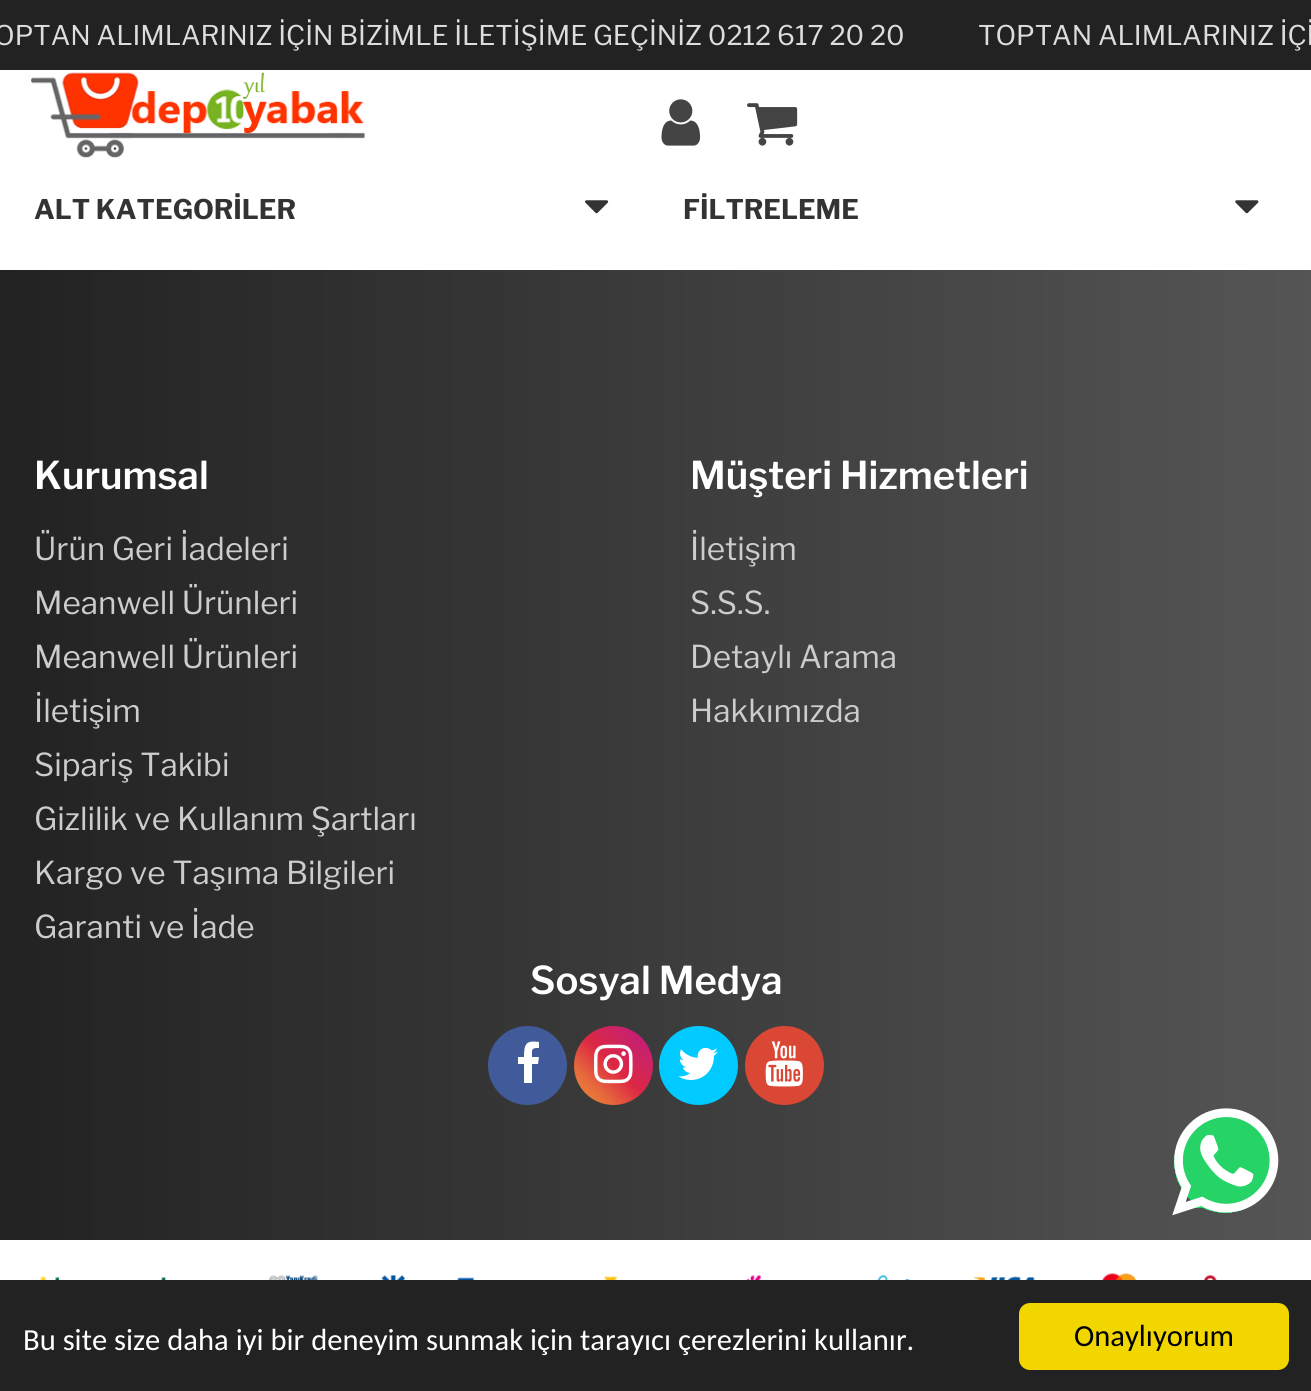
#include <cairo/cairo.h>
#include <math.h>
#include <stddef.h>

typedef struct { double x, y; const char *s; } line_t;
static cairo_t *cr;

static void rgb(unsigned color)
{
	cairo_set_source_rgb(cr, (color >> 16) / 255.0, (color >> 8 & 255) / 255.0, (color & 255) / 255.0);
}

static void rrect(double x, double y, double w, double h, double r)
{
	cairo_new_sub_path(cr);
	cairo_arc(cr, x + w - r, y + h - r, r, 0, M_PI / 2);
	cairo_arc(cr, x + r, y + h - r, r, M_PI / 2, M_PI);
	cairo_arc(cr, x + r, y + r, r, M_PI, 1.5 * M_PI);
	cairo_arc(cr, x + w - r, y + r, r, 1.5 * M_PI, 2 * M_PI);
	cairo_close_path(cr);
}

static void image(const char *path, double x, double y, double w, double h)
{
	cairo_surface_t *image = cairo_image_surface_create_from_png(path);
	cairo_save(cr);
	cairo_set_source_surface(cr, image, x, y);
	cairo_rectangle(cr, x, y, w, h);
	cairo_fill(cr);
	cairo_restore(cr);
	cairo_surface_destroy(image);
}

int main(void) {
	cairo_surface_t *surface = cairo_image_surface_create(CAIRO_FORMAT_RGB24, 1311, 1391);
	cr = cairo_create(surface);
	cairo_font_options_t *options = cairo_font_options_create();
	cairo_font_options_set_hint_metrics(options, CAIRO_HINT_METRICS_OFF);
	cairo_font_options_set_hint_style(options, CAIRO_HINT_STYLE_NONE);
	cairo_set_font_options(cr, options);
	cairo_set_miter_limit(cr, 4);
	cairo_pattern_t *gradient;
	rgb(0xffffff);
	cairo_paint(cr);
	rgb(0x222222);
	cairo_rectangle(cr, 0, 0, 1311, 70);
	cairo_fill(cr);
	image("img/1.png", 31, 72, 334, 86);
	image("img/2.png", 661, 99, 40, 47);
	image("img/3.png", 747, 103, 51, 43);
	image("img/4.png", 585, 200, 24, 14);
	image("img/5.png", 1235, 200, 24, 14);
	gradient = cairo_pattern_create_linear(0, 802, 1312, 802);
	cairo_pattern_add_color_stop_rgba(gradient, 0, 0.133, 0.133, 0.133, 1);
	cairo_pattern_add_color_stop_rgba(gradient, 1, 0.333, 0.333, 0.333, 1);
	cairo_set_source(cr, gradient);
	cairo_pattern_destroy(gradient);
	cairo_rectangle(cr, 0, 270, 1311, 970);
	cairo_fill(cr);
	rgb(0x415a99);
	cairo_arc(cr, 527.5, 1065.5, 39.5, 0, 2 * M_PI);
	cairo_fill(cr);
	rgb(0xffffff);
	cairo_new_path(cr);
	cairo_move_to(cr, 539, 1042);
	cairo_curve_to(cr, 526, 1040, 524, 1044, 524, 1057);
	cairo_line_to(cr, 518, 1057);
	cairo_line_to(cr, 518, 1064);
	cairo_line_to(cr, 524, 1064);
	cairo_line_to(cr, 524, 1083);
	cairo_line_to(cr, 532, 1083);
	cairo_line_to(cr, 532, 1064);
	cairo_line_to(cr, 538, 1064);
	cairo_line_to(cr, 539, 1057);
	cairo_line_to(cr, 532, 1057);
	cairo_curve_to(cr, 532, 1049, 531, 1048, 539, 1048);
	cairo_close_path(cr);
	cairo_fill(cr);
	gradient = cairo_pattern_create_linear(574, 1105, 653, 1026);
	cairo_pattern_add_color_stop_rgba(gradient, 0, 0.941, 0.58, 0.2, 1);
	cairo_pattern_add_color_stop_rgba(gradient, 0.25, 0.902, 0.408, 0.235, 1);
	cairo_pattern_add_color_stop_rgba(gradient, 0.5, 0.863, 0.153, 0.263, 1);
	cairo_pattern_add_color_stop_rgba(gradient, 0.75, 0.8, 0.137, 0.4, 1);
	cairo_pattern_add_color_stop_rgba(gradient, 1, 0.737, 0.094, 0.533, 1);
	cairo_set_source(cr, gradient);
	cairo_pattern_destroy(gradient);
	cairo_arc(cr, 613.5, 1065.5, 39.5, 0, 2 * M_PI);
	cairo_fill(cr);
	image("img/6.png", 594, 1044, 39, 40);
	rgb(0x00caff);
	cairo_arc(cr, 698.5, 1065.5, 39.5, 0, 2 * M_PI);
	cairo_fill(cr);
	image("img/7.png", 678, 1047, 40, 33);
	rgb(0xda4735);
	cairo_arc(cr, 784.5, 1065.5, 39.5, 0, 2 * M_PI);
	cairo_fill(cr);
	image("img/8.png", 765, 1041, 38, 46);
	image("img/9.png", 40, 1273, 1177, 7);
	gradient = cairo_pattern_create_radial(1225, 1162, 0, 1225, 1162, 81);
	cairo_pattern_add_color_stop_rgba(gradient, 0.63, 0.145, 0.827, 0.4, 1);
	cairo_pattern_add_color_stop_rgba(gradient, 0.63, 0.145, 0.827, 0.4, 0);
	cairo_set_source(cr, gradient);
	cairo_pattern_destroy(gradient);
	cairo_rectangle(cr, 1174, 1117, 96, 96);
	cairo_fill(cr);
	rgb(0x25d366);
	cairo_rectangle(cr, 1195, 1204, 7, 4);
	cairo_fill(cr);
	image("img/10.png", 1172, 1108, 107, 108);
	rgb(0x222222);
	cairo_rectangle(cr, 0, 1280, 1311, 111);
	cairo_fill(cr);
	rgb(0xf1d600);
	rrect(1019, 1303, 270, 67, 11);
	cairo_fill(cr);
	cairo_select_font_face(cr, "Libre Franklin", CAIRO_FONT_SLANT_NORMAL, CAIRO_FONT_WEIGHT_NORMAL);
	cairo_set_font_size(cr, 27);
	rgb(0xdddddd);
	cairo_move_to(cr, -6, 45);
	cairo_show_text(cr, "OPTAN ALIMLARINIZ İÇİN BİZİMLE İLETİŞİME GEÇİNİZ 0212 617 20 20");
	cairo_move_to(cr, 978, 45);
	cairo_show_text(cr, "TOPTAN ALIMLARINIZ İÇİ");
	cairo_select_font_face(cr, "Libre Franklin", CAIRO_FONT_SLANT_NORMAL, CAIRO_FONT_WEIGHT_BOLD);
	rgb(0x333333);
	cairo_move_to(cr, 34, 219);
	cairo_show_text(cr, "ALT KATEGORİLER");
	cairo_move_to(cr, 683, 219);
	cairo_show_text(cr, "FİLTRELEME");
	cairo_select_font_face(cr, "Libre Franklin SemiBold", CAIRO_FONT_SLANT_NORMAL, CAIRO_FONT_WEIGHT_NORMAL);
	cairo_set_font_size(cr, 38.25);
	rgb(0xffffff);
	cairo_move_to(cr, 34, 489);
	cairo_show_text(cr, "Kurumsal");
	cairo_select_font_face(cr, "Libre Franklin", CAIRO_FONT_SLANT_NORMAL, CAIRO_FONT_WEIGHT_NORMAL);
	cairo_set_font_size(cr, 31.5);
	rgb(0xcccccc);
	{
		static const line_t items[] = {
			{34, 560, "Ürün Geri İadeleri"},
			{34, 614, "Meanwell Ürünleri"},
			{34, 668, "Meanwell Ürünleri"},
			{34, 722, "İletişim"},
			{34, 776, "Sipariş Takibi"},
			{34, 830, "Gizlilik ve Kullanım Şartları"},
			{34, 884, "Kargo ve Taşıma Bilgileri"},
			{34, 938, "Garanti ve İade"},
		};
		for (size_t i = 0; i < sizeof items / sizeof *items; i++) {
			cairo_move_to(cr, items[i].x, items[i].y);
			cairo_show_text(cr, items[i].s);
		}
	}
	cairo_select_font_face(cr, "Libre Franklin SemiBold", CAIRO_FONT_SLANT_NORMAL, CAIRO_FONT_WEIGHT_NORMAL);
	cairo_set_font_size(cr, 38.25);
	rgb(0xffffff);
	cairo_move_to(cr, 690, 489);
	cairo_show_text(cr, "Müşteri Hizmetleri");
	cairo_select_font_face(cr, "Libre Franklin", CAIRO_FONT_SLANT_NORMAL, CAIRO_FONT_WEIGHT_NORMAL);
	cairo_set_font_size(cr, 31.5);
	rgb(0xcccccc);
	{
		static const line_t items[] = {
			{690, 560, "İletişim"},
			{690, 614, "S.S.S."},
			{690, 668, "Detaylı Arama"},
			{690, 722, "Hakkımızda"},
		};
		for (size_t i = 0; i < sizeof items / sizeof *items; i++) {
			cairo_move_to(cr, items[i].x, items[i].y);
			cairo_show_text(cr, items[i].s);
		}
	}
	cairo_select_font_face(cr, "Libre Franklin SemiBold", CAIRO_FONT_SLANT_NORMAL, CAIRO_FONT_WEIGHT_NORMAL);
	cairo_set_font_size(cr, 38.25);
	rgb(0xffffff);
	cairo_move_to(cr, 530, 994);
	cairo_show_text(cr, "Sosyal Medya");
	cairo_select_font_face(cr, "Carlito", CAIRO_FONT_SLANT_NORMAL, CAIRO_FONT_WEIGHT_NORMAL);
	cairo_set_font_size(cr, 30.6);
	cairo_move_to(cr, 23, 1350);
	cairo_show_text(cr, "Bu site size daha iyi bir deneyim sunmak için tarayıcı çerezlerini kullanır.");
	rgb(0x000000);
	cairo_move_to(cr, 1074, 1346);
	cairo_show_text(cr, "Onaylıyorum");
	cairo_surface_write_to_png(surface, "page.png");
	cairo_font_options_destroy(options);
	cairo_destroy(cr);
	cairo_surface_destroy(surface);
	return 0;
}
